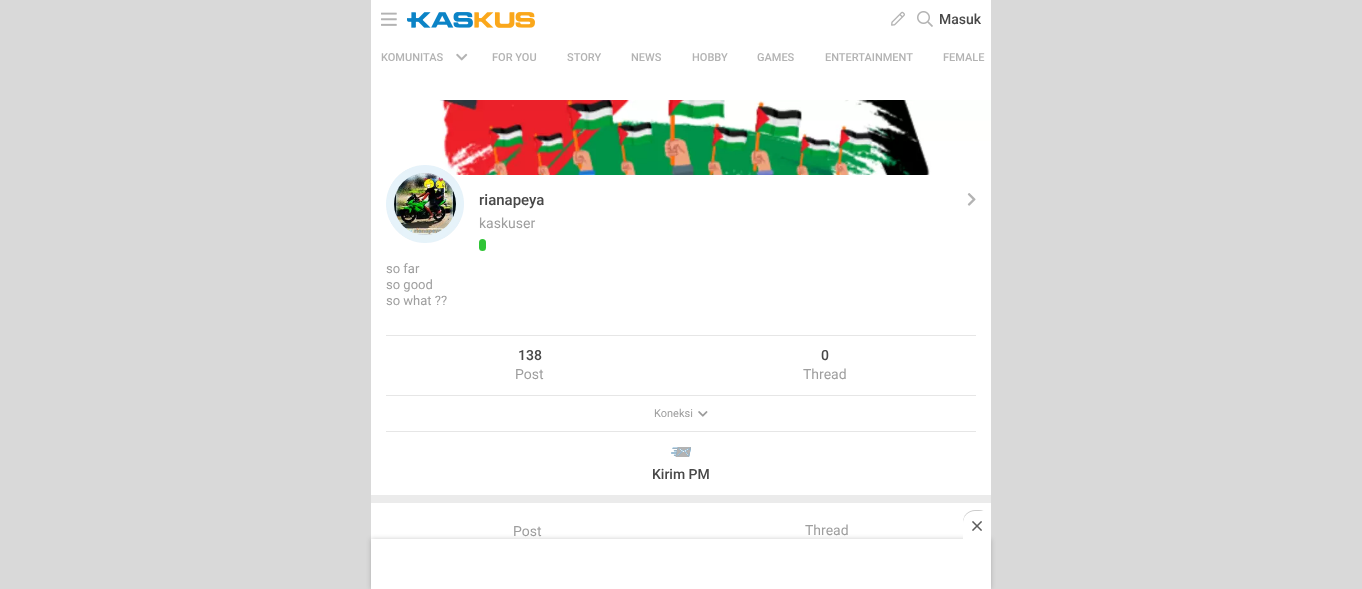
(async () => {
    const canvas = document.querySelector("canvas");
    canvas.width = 1362;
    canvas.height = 589;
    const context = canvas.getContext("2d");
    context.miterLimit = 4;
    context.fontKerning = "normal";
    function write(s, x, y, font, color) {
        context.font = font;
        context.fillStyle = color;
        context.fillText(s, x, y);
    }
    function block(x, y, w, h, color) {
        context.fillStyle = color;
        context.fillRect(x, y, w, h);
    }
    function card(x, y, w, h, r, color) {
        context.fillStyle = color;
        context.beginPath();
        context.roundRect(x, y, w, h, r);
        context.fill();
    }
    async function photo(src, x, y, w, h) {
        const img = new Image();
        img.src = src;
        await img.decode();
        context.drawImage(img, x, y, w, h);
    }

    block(0, 0, 1362, 589, "rgb(217, 217, 217)");
    block(371, 0, 620, 539, "rgb(255, 255, 255)");
    await photo("media/1.png", 381, 12, 16, 14);
    await photo("media/2.png", 407, 12, 128, 16);
    await photo("media/3.png", 891, 11, 14, 15);
    await photo("media/4.png", 917, 11, 16, 16);
    write("Masuk", 939, 24, "500 14px Roboto", "rgb(72, 72, 72)");
    write("KOMUNITAS", 381, 61, "500 11px Roboto", "rgb(179, 179, 179)");
    await photo("media/5.png", 456, 53, 12, 8);
    write("FOR YOU", 492, 61, "500 11px Roboto", "rgb(179, 179, 179)");
    write("STORY", 567, 61, "500 11px Roboto", "rgb(179, 179, 179)");
    write("NEWS", 631, 61, "500 11px Roboto", "rgb(179, 179, 179)");
    write("HOBBY", 692, 61, "500 11px Roboto", "rgb(179, 179, 179)");
    write("GAMES", 757, 61, "500 11px Roboto", "rgb(179, 179, 179)");
    write("ENTERTAINMENT", 825, 61, "500 11px Roboto", "rgb(179, 179, 179)");
    write("FEMALE", 943, 61, "500 11px Roboto", "rgb(179, 179, 179)");
    await photo("media/6.png", 371, 100, 620, 75);
    await photo("media/8.png", 394, 173, 62, 62);
    await photo("media/7.png", 386, 165, 78, 78);
    write("rianapeya", 479, 205, "500 15px Roboto", "rgb(72, 72, 72)");
    write("kaskuser", 479, 228, "14px Roboto", "rgb(158, 158, 158)");
    card(479, 239, 7, 12, 3.5, "rgb(48, 196, 54)");
    await photo("media/9.png", 967, 193, 9, 13);
    block(371, 495, 620, 8, "rgb(235, 235, 235)");
    write("so far", 386, 273, "13px Roboto", "rgb(158, 158, 158)");
    write("so good", 386, 289, "13px Roboto", "rgb(158, 158, 158)");
    write("so what ??", 386, 305, "13px Roboto", "rgb(158, 158, 158)");
    block(386, 335, 590, 1, "rgb(230, 230, 230)");
    write("138", 518, 360, "500 14px Roboto", "rgb(72, 72, 72)");
    write("Post", 515, 379, "14px Roboto", "rgb(158, 158, 158)");
    write("0", 821, 360, "500 14px Roboto", "rgb(72, 72, 72)");
    write("Thread", 803, 379, "14px Roboto", "rgb(158, 158, 158)");
    block(386, 395, 590, 1, "rgb(230, 230, 230)");
    write("Koneksi", 654, 417, "11px Roboto", "rgb(158, 158, 158)");
    await photo("media/10.png", 698, 411, 10, 6);
    block(386, 431, 590, 1, "rgb(230, 230, 230)");
    await photo("media/11.png", 671, 447, 20, 10);
    write("Kirim PM", 652, 479, "500 14px Roboto", "rgb(72, 72, 72)");
    write("Post", 513, 536, "14px Roboto", "rgb(158, 158, 158)");
    write("Thread", 805, 535, "14px Roboto", "rgb(158, 158, 158)");
    context.fillStyle = "rgba(0, 0, 0, 0.2)";
    context.filter = "blur(2.5px)";
    context.beginPath();
    context.rect(371, 539, 620, 50);
    context.fill();
    context.filter = "none";
    block(371, 539, 620, 50, "rgb(255, 255, 255)");
    context.fillStyle = "rgba(0, 0, 0, 0.2)";
    context.filter = "blur(0.5px)";
    context.beginPath();
    context.roundRect(963, 510, 28, 28, 12);
    context.fill();
    context.filter = "none";
    context.fillStyle = "rgb(255, 255, 255)";
    context.beginPath();
    context.roundRect(963, 511, 28, 28, [12, 0, 0, 0]);
    context.fill();
    await photo("media/12.png", 972, 521, 10, 10);
})();
